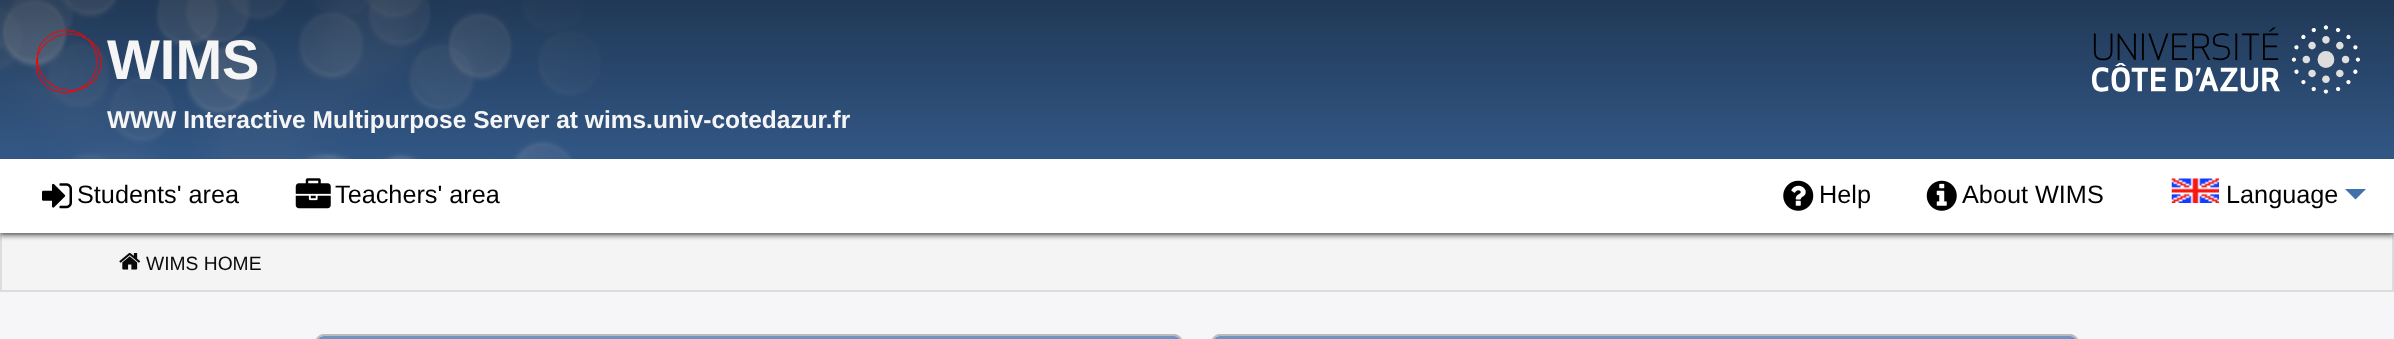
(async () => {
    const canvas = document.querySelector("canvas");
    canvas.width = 2394;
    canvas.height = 339;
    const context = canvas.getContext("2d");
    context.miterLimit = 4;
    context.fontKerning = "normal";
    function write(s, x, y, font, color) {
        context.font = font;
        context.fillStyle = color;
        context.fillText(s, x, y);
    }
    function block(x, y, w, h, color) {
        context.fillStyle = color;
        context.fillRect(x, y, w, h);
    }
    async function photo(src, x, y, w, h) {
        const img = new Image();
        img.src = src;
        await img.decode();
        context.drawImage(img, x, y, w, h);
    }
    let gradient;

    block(0, 0, 2394, 339, "rgb(65, 113, 173)");
    await photo("media/1.png", 0, 0, 601, 159);
    gradient = context.createLinearGradient(1197, 0, 1197, 292);
    gradient.addColorStop(0, "rgba(0, 0, 0, 0.5)");
    gradient.addColorStop(1, "rgba(0, 0, 0, 0)");
    context.fillStyle = gradient;
    context.fillRect(0, 0, 2394, 159);
    await photo("media/2.png", 36, 29, 66, 64);
    write("WIMS", 107, 79, "bold 56px Liberation Sans", "rgb(245, 245, 245)");
    write("WWW Interactive Multipurpose Server at wims.univ-cotedazur.fr", 107, 128, "bold 24.5px Liberation Sans", "rgb(245, 245, 245)");
    await photo("media/3.png", 2091, 25, 269, 69);
    context.fillStyle = "rgb(244, 244, 244)";
    context.beginPath();
    context.rect(1, 234, 2392, 57);
    context.fill();
    context.strokeStyle = "rgb(220, 220, 220)";
    context.lineWidth = 2;
    context.stroke();
    context.fillStyle = "rgba(0, 0, 0, 0.5)";
    context.filter = "blur(2.5px)";
    context.beginPath();
    context.rect(0, 163, 2394, 73);
    context.fill();
    context.filter = "none";
    block(0, 159, 2394, 74, "rgb(255, 255, 255)");
    await photo("media/4.png", 42, 183, 30, 26);
    write("Students' area", 77, 203, "25.25px Liberation Sans", "rgb(0, 0, 0)");
    await photo("media/5.png", 295, 178, 36, 31);
    write("Teachers' area", 335, 203, "25.25px Liberation Sans", "rgb(0, 0, 0)");
    await photo("media/6.png", 1783, 180, 31, 31);
    write("Help", 1819, 203, "25.25px Liberation Sans", "rgb(0, 0, 0)");
    await photo("media/7.png", 1926, 180, 31, 31);
    write("About WIMS", 1962, 203, "25.25px Liberation Sans", "rgb(0, 0, 0)");
    await photo("media/8.png", 2171, 178, 48, 25);
    write("Language", 2226, 203, "25.25px Liberation Sans", "rgb(0, 0, 0)");
    context.fillStyle = "rgb(65, 113, 173)";
    context.beginPath();
    context.moveTo(2345, 189);
    context.lineTo(2366, 189);
    context.lineTo(2355.5, 199.5);
    context.closePath();
    context.fill();
    await photo("media/9.png", 119, 253, 22, 17);
    write("WIMS HOME", 146, 270, "19.25px Liberation Sans", "rgb(10, 10, 10)");
    block(0, 292, 2394, 47, "rgb(246, 246, 249)");
    context.fillStyle = "rgb(65, 113, 173)";
    context.beginPath();
    context.moveTo(324, 336);
    context.lineTo(1174, 336);
    context.bezierCurveTo(1178, 336, 1181, 339, 1181, 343);
    context.lineTo(1181, 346);
    context.lineTo(317, 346);
    context.lineTo(317, 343);
    context.bezierCurveTo(317, 339, 320, 336, 324, 336);
    context.closePath();
    context.fill();
    gradient = context.createLinearGradient(749, 336, 749, 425);
    gradient.addColorStop(0, "rgba(255, 255, 255, 0.25)");
    gradient.addColorStop(0.49, "rgba(255, 255, 255, 0.1)");
    gradient.addColorStop(0.5, "rgba(0, 0, 0, 0.1)");
    gradient.addColorStop(1, "rgba(0, 0, 0, 0.25)");
    context.fillStyle = gradient;
    context.beginPath();
    context.moveTo(324, 336);
    context.lineTo(1174, 336);
    context.bezierCurveTo(1178, 336, 1181, 339, 1181, 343);
    context.lineTo(1181, 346);
    context.lineTo(317, 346);
    context.lineTo(317, 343);
    context.bezierCurveTo(317, 339, 320, 336, 324, 336);
    context.closePath();
    context.fill();
    context.fillStyle = "rgb(187, 187, 187)";
    context.beginPath();
    context.moveTo(324, 334);
    context.lineTo(1174, 334);
    context.bezierCurveTo(1179, 334, 1183, 338, 1183, 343);
    context.lineTo(1183, 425);
    context.lineTo(315, 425);
    context.lineTo(315, 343);
    context.bezierCurveTo(315, 338, 319, 334, 324, 334);
    context.closePath();
    context.moveTo(324, 336);
    context.lineTo(1174, 336);
    context.bezierCurveTo(1178, 336, 1181, 339, 1181, 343);
    context.lineTo(1181, 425);
    context.lineTo(317, 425);
    context.lineTo(317, 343);
    context.bezierCurveTo(317, 339, 320, 336, 324, 336);
    context.closePath();
    context.fill("evenodd");
    context.fillStyle = "rgb(65, 113, 173)";
    context.beginPath();
    context.moveTo(1220, 336);
    context.lineTo(2070, 336);
    context.bezierCurveTo(2074, 336, 2077, 339, 2077, 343);
    context.lineTo(2077, 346);
    context.lineTo(1213, 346);
    context.lineTo(1213, 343);
    context.bezierCurveTo(1213, 339, 1216, 336, 1220, 336);
    context.closePath();
    context.fill();
    gradient = context.createLinearGradient(1645, 336, 1645, 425);
    gradient.addColorStop(0, "rgba(255, 255, 255, 0.25)");
    gradient.addColorStop(0.49, "rgba(255, 255, 255, 0.1)");
    gradient.addColorStop(0.5, "rgba(0, 0, 0, 0.1)");
    gradient.addColorStop(1, "rgba(0, 0, 0, 0.25)");
    context.fillStyle = gradient;
    context.beginPath();
    context.moveTo(1220, 336);
    context.lineTo(2070, 336);
    context.bezierCurveTo(2074, 336, 2077, 339, 2077, 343);
    context.lineTo(2077, 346);
    context.lineTo(1213, 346);
    context.lineTo(1213, 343);
    context.bezierCurveTo(1213, 339, 1216, 336, 1220, 336);
    context.closePath();
    context.fill();
    context.fillStyle = "rgb(187, 187, 187)";
    context.beginPath();
    context.moveTo(1220, 334);
    context.lineTo(2070, 334);
    context.bezierCurveTo(2075, 334, 2079, 338, 2079, 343);
    context.lineTo(2079, 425);
    context.lineTo(1211, 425);
    context.lineTo(1211, 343);
    context.bezierCurveTo(1211, 338, 1215, 334, 1220, 334);
    context.closePath();
    context.moveTo(1220, 336);
    context.lineTo(2070, 336);
    context.bezierCurveTo(2074, 336, 2077, 339, 2077, 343);
    context.lineTo(2077, 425);
    context.lineTo(1213, 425);
    context.lineTo(1213, 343);
    context.bezierCurveTo(1213, 339, 1216, 336, 1220, 336);
    context.closePath();
    context.fill("evenodd");
})();
